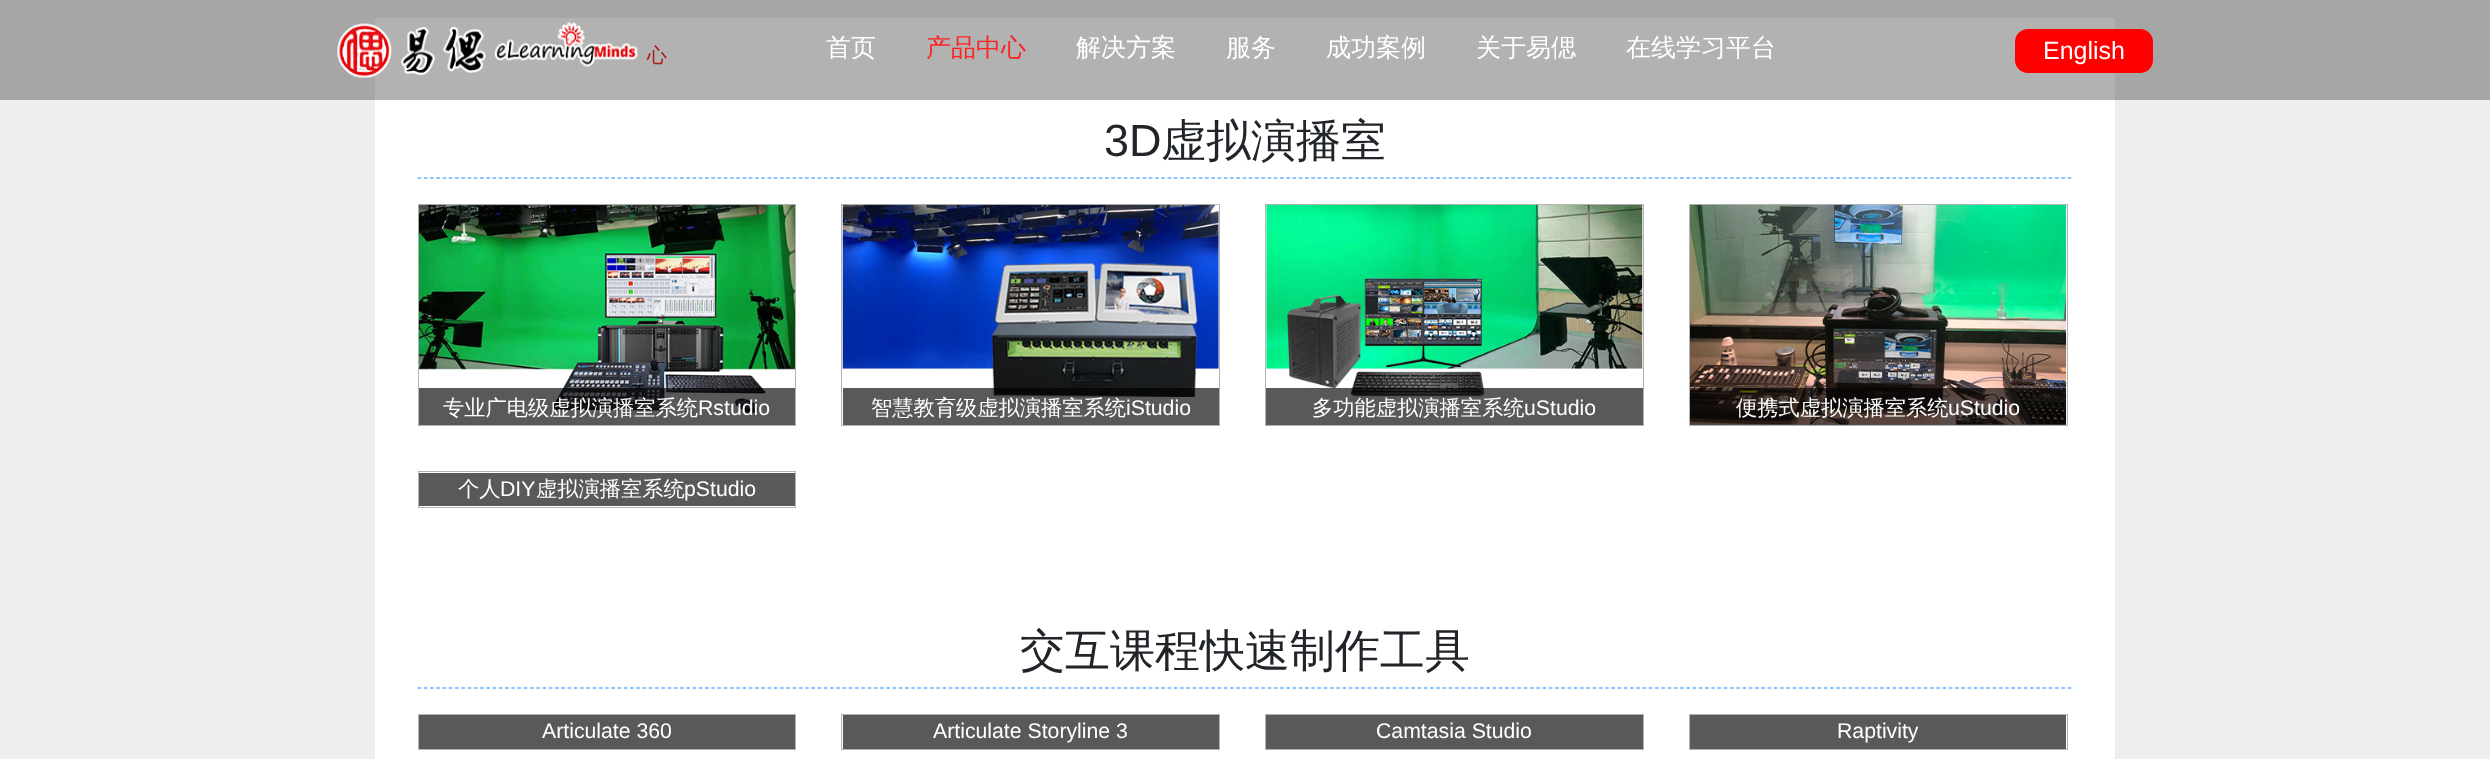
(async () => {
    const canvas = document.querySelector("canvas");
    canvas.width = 2490;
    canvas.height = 759;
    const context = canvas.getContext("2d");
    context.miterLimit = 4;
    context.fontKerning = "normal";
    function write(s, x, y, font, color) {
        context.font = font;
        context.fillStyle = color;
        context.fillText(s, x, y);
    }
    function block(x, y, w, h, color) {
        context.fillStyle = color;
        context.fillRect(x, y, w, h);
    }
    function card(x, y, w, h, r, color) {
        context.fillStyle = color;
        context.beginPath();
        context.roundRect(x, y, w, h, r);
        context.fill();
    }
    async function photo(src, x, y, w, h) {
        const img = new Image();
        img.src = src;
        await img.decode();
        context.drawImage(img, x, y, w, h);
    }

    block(0, 0, 2490, 759, "rgb(238, 238, 238)");
    card(375, 18, 1740, 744, 2.5, "rgb(255, 255, 255)");
    write("心", 647, 62, "500 20px WenQuanYi Zen Hei", "rgb(255, 33, 33)");
    block(0, 0, 2490, 100, "rgba(0, 0, 0, 0.3)");
    await photo("media/1.png", 337, 22, 301, 56);
    write("首页", 826, 56, "500 25px WenQuanYi Zen Hei", "rgb(255, 255, 255)");
    write("产品中心", 926, 56, "500 25px WenQuanYi Zen Hei", "rgb(255, 33, 33)");
    write("解决方案", 1076, 56, "500 25px WenQuanYi Zen Hei", "rgb(255, 255, 255)");
    write("服务", 1226, 56, "500 25px WenQuanYi Zen Hei", "rgb(255, 255, 255)");
    write("成功案例", 1326, 56, "500 25px WenQuanYi Zen Hei", "rgb(255, 255, 255)");
    write("关于易偲", 1476, 56, "500 25px WenQuanYi Zen Hei", "rgb(255, 255, 255)");
    write("在线学习平台", 1626, 56, "500 25px WenQuanYi Zen Hei", "rgb(255, 255, 255)");
    context.fillStyle = "rgb(255, 0, 0)";
    context.beginPath();
    context.roundRect(2016.5, 30.5, 135, 41, 11.5);
    context.fill();
    context.strokeStyle = "rgb(255, 0, 0)";
    context.lineWidth = 3;
    context.stroke();
    write("English", 2043, 59, "25px Liberation Sans", "rgb(255, 255, 255)");
    context.beginPath();
    context.moveTo(417.5, 178);
    context.lineTo(2072.5, 178);
    context.strokeStyle = "rgb(30, 144, 255)";
    context.lineWidth = 1.2;
    context.setLineDash([3.75, 2.5]);
    context.stroke();
    write("3D", 1104, 156, "45px Liberation Sans", "rgb(33, 37, 41)");
    write("虚拟演播室", 1161, 156, "500 45px WenQuanYi Zen Hei", "rgb(33, 37, 41)");
    context.strokeStyle = "rgb(179, 179, 179)";
    context.lineWidth = 1;
    context.setLineDash([]);
    context.strokeRect(418.5, 204.5, 377, 221);
    await photo("media/2.png", 418, 204, 377, 220);
    block(419, 388, 376, 37, "rgba(0, 0, 0, 0.65)");
    write("专业广电级虚拟演播室系统", 443, 415, "500 21.25px WenQuanYi Zen Hei", "rgb(255, 255, 255)");
    write("Rstudio", 698, 415, "21.25px Liberation Sans", "rgb(255, 255, 255)");
    context.strokeRect(841.5, 204.5, 378, 221);
    await photo("media/3.png", 842, 204, 377, 193);
    block(843, 388, 376, 37, "rgba(0, 0, 0, 0.65)");
    write("智慧教育级虚拟演播室系统", 871, 415, "500 21.25px WenQuanYi Zen Hei", "rgb(255, 255, 255)");
    write("iStudio", 1126, 415, "21.25px Liberation Sans", "rgb(255, 255, 255)");
    context.strokeRect(1265.5, 204.5, 378, 221);
    await photo("media/4.png", 1266, 204, 377, 193);
    block(1266, 388, 377, 37, "rgba(0, 0, 0, 0.65)");
    write("多功能虚拟演播室系统", 1312, 415, "500 21.25px WenQuanYi Zen Hei", "rgb(255, 255, 255)");
    write("uStudio", 1524, 415, "21.25px Liberation Sans", "rgb(255, 255, 255)");
    context.strokeRect(1689.5, 204.5, 378, 221);
    await photo("media/5.png", 1690, 204, 377, 221);
    block(1690, 388, 376, 37, "rgba(0, 0, 0, 0.65)");
    write("便携式虚拟演播室系统", 1736, 415, "500 21.25px WenQuanYi Zen Hei", "rgb(255, 255, 255)");
    write("uStudio", 1948, 415, "21.25px Liberation Sans", "rgb(255, 255, 255)");
    context.strokeRect(418.5, 471.5, 377, 36);
    block(419, 473, 376, 33, "rgb(89, 89, 89)");
    write("个人", 458, 496, "500 21.25px WenQuanYi Zen Hei", "rgb(255, 255, 255)");
    write("DIY", 500, 496, "21.25px Liberation Sans", "rgb(255, 255, 255)");
    write("虚拟演播室系统", 536, 496, "500 21.25px WenQuanYi Zen Hei", "rgb(255, 255, 255)");
    write("pStudio", 684, 496, "21.25px Liberation Sans", "rgb(255, 255, 255)");
    context.beginPath();
    context.moveTo(417.5, 688);
    context.lineTo(2072.5, 688);
    context.strokeStyle = "rgb(30, 144, 255)";
    context.lineWidth = 1.2;
    context.setLineDash([3.75, 2.5]);
    context.stroke();
    write("交互课程快速制作工具", 1020, 666, "500 45px WenQuanYi Zen Hei", "rgb(33, 37, 41)");
    context.strokeStyle = "rgb(179, 179, 179)";
    context.lineWidth = 1;
    context.setLineDash([]);
    context.strokeRect(418.5, 714.5, 377, 35);
    block(419, 715, 376, 34, "rgb(89, 89, 89)");
    write("Articulate 360", 542, 738, "21.25px Liberation Sans", "rgb(255, 255, 255)");
    context.strokeRect(841.5, 714.5, 378, 35);
    block(843, 715, 376, 34, "rgb(89, 89, 89)");
    write("Articulate Storyline 3", 933, 738, "21.25px Liberation Sans", "rgb(255, 255, 255)");
    context.strokeRect(1265.5, 714.5, 378, 35);
    block(1266, 715, 377, 34, "rgb(89, 89, 89)");
    write("Camtasia Studio", 1376, 738, "21.25px Liberation Sans", "rgb(255, 255, 255)");
    context.strokeRect(1689.5, 714.5, 378, 35);
    block(1690, 715, 376, 34, "rgb(89, 89, 89)");
    write("Raptivity", 1837, 738, "21.25px Liberation Sans", "rgb(255, 255, 255)");
})();
